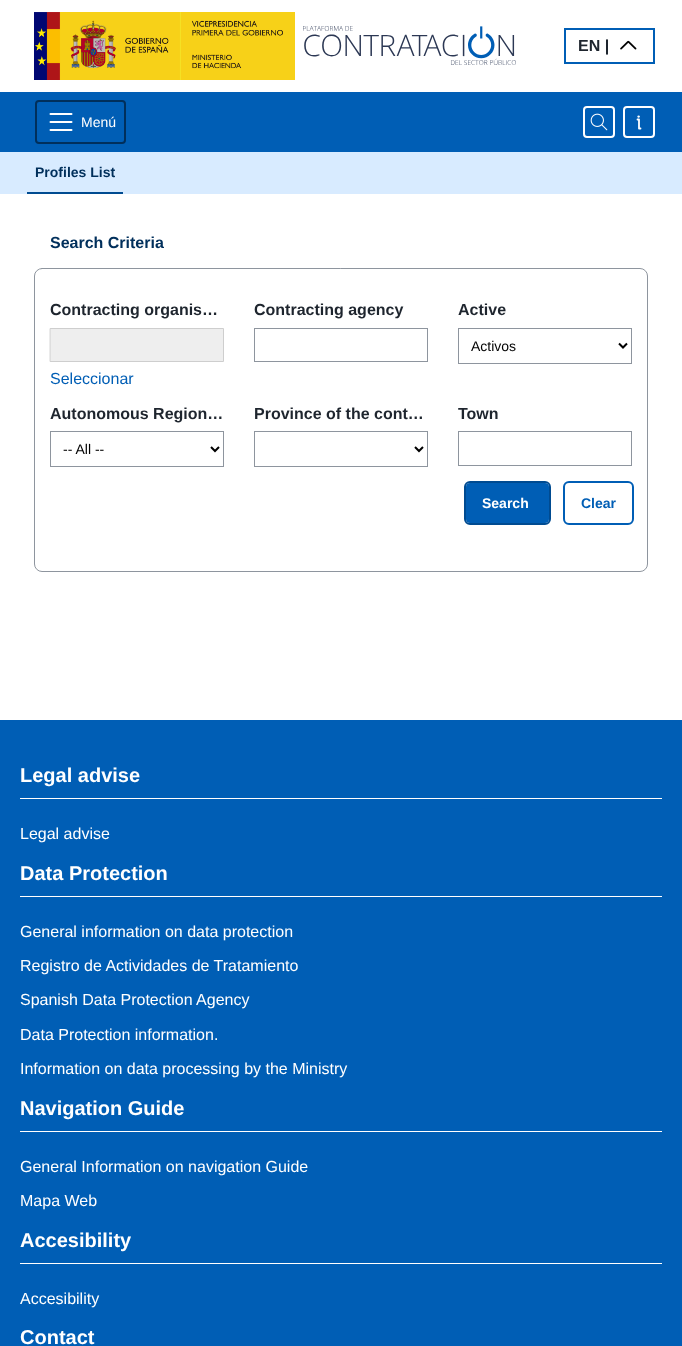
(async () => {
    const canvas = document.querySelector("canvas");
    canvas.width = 682;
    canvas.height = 1346;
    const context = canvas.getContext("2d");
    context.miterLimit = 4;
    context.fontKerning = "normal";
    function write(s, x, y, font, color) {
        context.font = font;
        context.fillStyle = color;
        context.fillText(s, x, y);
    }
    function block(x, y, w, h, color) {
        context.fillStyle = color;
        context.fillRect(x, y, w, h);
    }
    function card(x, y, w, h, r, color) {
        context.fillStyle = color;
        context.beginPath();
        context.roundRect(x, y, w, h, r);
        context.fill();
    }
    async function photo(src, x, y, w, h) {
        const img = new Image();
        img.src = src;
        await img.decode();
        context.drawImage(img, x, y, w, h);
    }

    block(0, 0, 682, 1346, "rgb(255, 255, 255)");
    await photo("media/1.png", 34, 12, 261, 68);
    await photo("media/2.png", 303, 26, 213, 39);
    context.strokeStyle = "rgb(0, 94, 181)";
    context.lineWidth = 2;
    context.strokeRect(565, 29, 89, 34);
    write("EN |", 578, 51, "bold 16px Liberation Sans", "rgb(30, 37, 46)");
    await photo("media/3.png", 620, 40, 17, 10);
    block(0, 92, 682, 60, "rgb(0, 94, 181)");
    context.beginPath();
    context.roundRect(36, 101, 89, 42, 3);
    context.strokeStyle = "rgb(0, 47, 91)";
    context.stroke();
    context.beginPath();
    context.moveTo(50.5, 114);
    context.lineTo(71.5, 114);
    context.moveTo(50.5, 122);
    context.lineTo(71.5, 122);
    context.moveTo(50.5, 130);
    context.lineTo(71.5, 130);
    context.strokeStyle = "rgb(255, 255, 255)";
    context.lineCap = "round";
    context.lineJoin = "round";
    context.stroke();
    write("Menú", 81, 127, "14px Liberation Sans", "rgb(255, 255, 255)");
    context.beginPath();
    context.roundRect(584, 107, 30, 30, 3);
    context.lineJoin = "miter";
    context.stroke();
    await photo("media/4.png", 590, 113, 18, 18);
    context.beginPath();
    context.roundRect(624, 107, 30, 30, 3);
    context.stroke();
    context.beginPath();
    context.moveTo(637.5, 119.5);
    context.lineTo(639, 119.5);
    context.lineTo(639, 128.5);
    context.lineTo(640.5, 128.5);
    context.lineWidth = 1.8;
    context.lineJoin = "round";
    context.stroke();
    context.beginPath();
    context.arc(638.6, 116.6, 1.2, 0, Math.PI * 2);
    context.fill();
    block(0, 152, 682, 42, "rgb(216, 235, 255)");
    block(27, 192, 96, 2, "rgb(0, 75, 145)");
    write("Profiles List", 35, 177, "bold 14px Liberation Sans", "rgb(0, 47, 91)");
    write("Search Criteria", 50, 248, "bold 16px Liberation Sans", "rgb(0, 47, 91)");
    context.beginPath();
    context.roundRect(34.5, 268.5, 613, 303, 7.5);
    context.strokeStyle = "rgb(142, 149, 158)";
    context.lineWidth = 1;
    context.lineJoin = "miter";
    context.stroke();
    write("Contracting organis…", 50, 315, "bold 16px Liberation Sans", "rgb(30, 37, 46)");
    context.fillStyle = "rgb(238, 238, 238)";
    context.beginPath();
    context.rect(50.5, 328.5, 173, 33);
    context.fill();
    context.strokeStyle = "rgb(206, 206, 206)";
    context.stroke();
    write("Seleccionar", 50, 384, "16px Liberation Sans", "rgb(0, 94, 181)");
    write("Contracting agency", 254, 315, "bold 16px Liberation Sans", "rgb(30, 37, 46)");
    context.strokeStyle = "rgb(142, 149, 158)";
    context.strokeRect(254.5, 328.5, 173, 33);
    write("Active", 458, 315, "bold 16px Liberation Sans", "rgb(30, 37, 46)");
    context.strokeRect(458.5, 328.5, 173, 35);
    context.beginPath();
    context.moveTo(619, 343.5);
    context.lineTo(623, 347.5);
    context.lineTo(627, 343.5);
    context.strokeStyle = "rgb(0, 0, 0)";
    context.lineWidth = 2;
    context.lineCap = "butt";
    context.stroke();
    write("Activos", 471, 351, "14px Liberation Sans", "rgb(0, 0, 0)");
    write("Autonomous Region…", 50, 419, "bold 16px Liberation Sans", "rgb(30, 37, 46)");
    context.strokeStyle = "rgb(142, 149, 158)";
    context.lineWidth = 1;
    context.strokeRect(50.5, 431.5, 173, 35);
    context.beginPath();
    context.moveTo(211, 447);
    context.lineTo(215, 451);
    context.lineTo(219, 447);
    context.strokeStyle = "rgb(0, 0, 0)";
    context.lineWidth = 2;
    context.stroke();
    write("-- All --", 63, 454, "14px Liberation Sans", "rgb(0, 0, 0)");
    write("Province of the cont…", 254, 419, "bold 16px Liberation Sans", "rgb(30, 37, 46)");
    context.strokeStyle = "rgb(142, 149, 158)";
    context.lineWidth = 1;
    context.strokeRect(254.5, 431.5, 173, 35);
    context.beginPath();
    context.moveTo(415, 447);
    context.lineTo(419, 451);
    context.lineTo(423, 447);
    context.strokeStyle = "rgb(0, 0, 0)";
    context.lineWidth = 2;
    context.stroke();
    write("Town", 458, 419, "bold 16px Liberation Sans", "rgb(30, 37, 46)");
    context.strokeStyle = "rgb(142, 149, 158)";
    context.lineWidth = 1;
    context.strokeRect(458.5, 431.5, 173, 34);
    card(466, 483, 83, 40, 4, "rgb(0, 94, 181)");
    context.beginPath();
    context.roundRect(465, 482, 85, 42, 5);
    context.strokeStyle = "rgb(0, 75, 145)";
    context.lineWidth = 2;
    context.stroke();
    write("Search", 482, 508, "bold 14px Liberation Sans", "rgb(255, 255, 255)");
    context.beginPath();
    context.roundRect(564, 482, 69, 42, 5);
    context.strokeStyle = "rgb(0, 94, 181)";
    context.stroke();
    write("Clear", 581, 508, "bold 14px Liberation Sans", "rgb(0, 94, 181)");
    block(0, 720, 682, 626, "rgb(0, 94, 181)");
    block(20, 798, 642, 1, "rgb(255, 255, 255)");
    write("Legal advise", 20, 782, "bold 20px Liberation Sans", "rgb(255, 255, 255)");
    write("Legal advise", 20, 839, "16px Liberation Sans", "rgb(255, 255, 255)");
    block(20, 896, 642, 1, "rgb(255, 255, 255)");
    write("Data Protection", 20, 880, "bold 20px Liberation Sans", "rgb(255, 255, 255)");
    write("General information on data protection", 20, 937, "16px Liberation Sans", "rgb(255, 255, 255)");
    write("Registro de Actividades de Tratamiento", 20, 971, "16px Liberation Sans", "rgb(255, 255, 255)");
    write("Spanish Data Protection Agency", 20, 1005, "16px Liberation Sans", "rgb(255, 255, 255)");
    write("Data Protection information.", 20, 1040, "16px Liberation Sans", "rgb(255, 255, 255)");
    write("Information on data processing by the Ministry", 20, 1074, "16px Liberation Sans", "rgb(255, 255, 255)");
    block(20, 1131, 642, 1, "rgb(255, 255, 255)");
    write("Navigation Guide", 20, 1115, "bold 20px Liberation Sans", "rgb(255, 255, 255)");
    write("General Information on navigation Guide", 20, 1172, "16px Liberation Sans", "rgb(255, 255, 255)");
    write("Mapa Web", 20, 1206, "16px Liberation Sans", "rgb(255, 255, 255)");
    block(20, 1263, 642, 1, "rgb(255, 255, 255)");
    write("Accesibility", 20, 1247, "bold 20px Liberation Sans", "rgb(255, 255, 255)");
    write("Accesibility", 20, 1304, "16px Liberation Sans", "rgb(255, 255, 255)");
    write("Contact", 20, 1344, "bold 20px Liberation Sans", "rgb(255, 255, 255)");
})();
